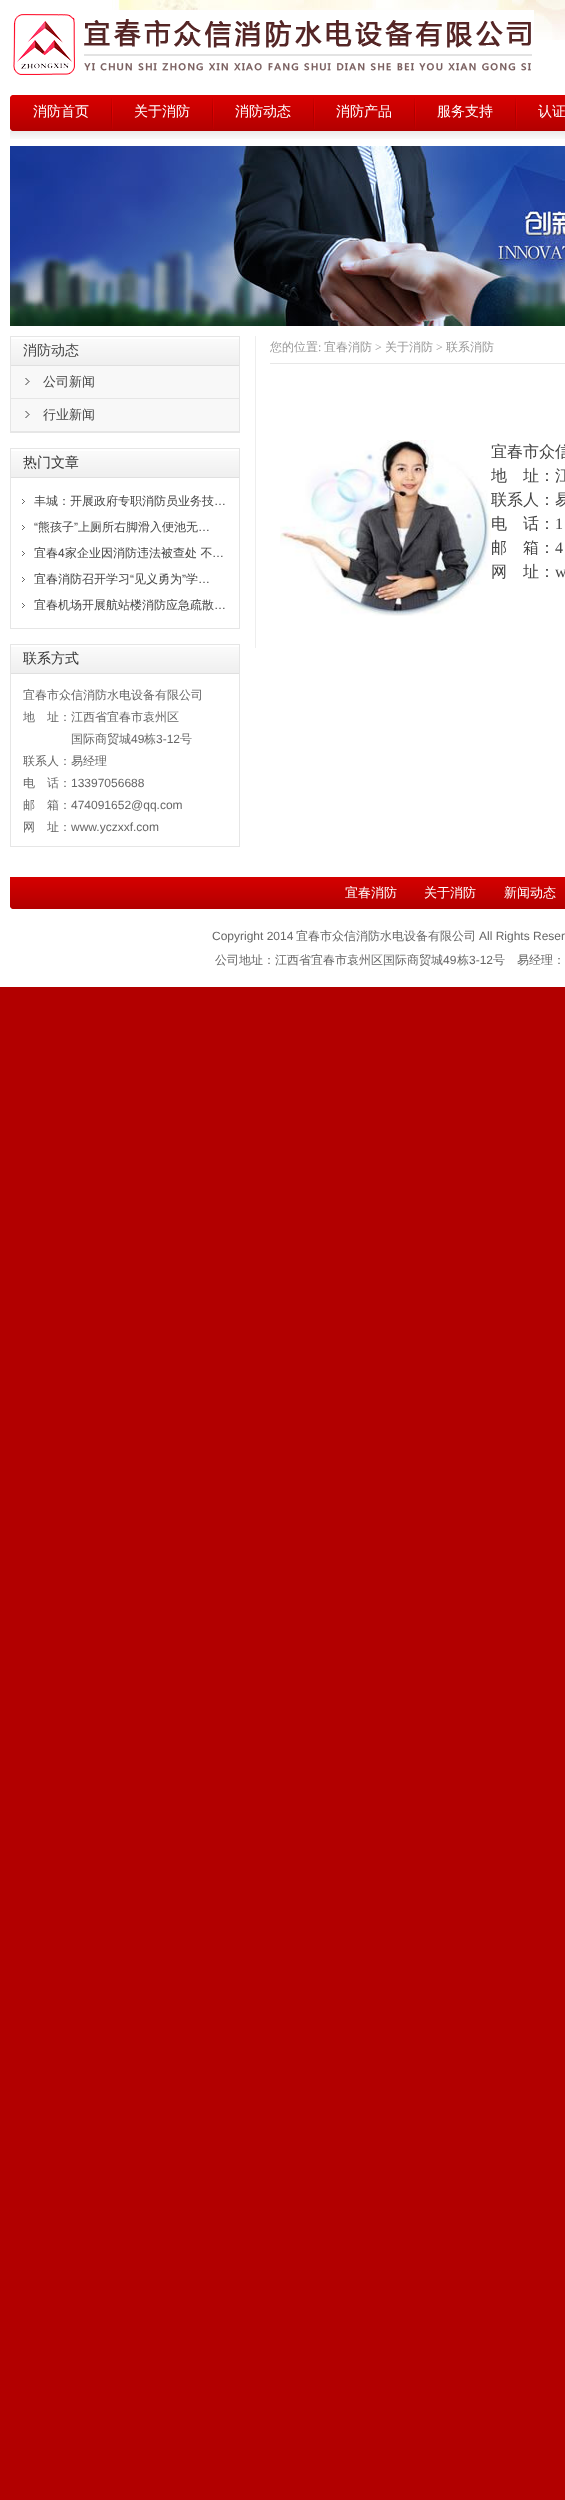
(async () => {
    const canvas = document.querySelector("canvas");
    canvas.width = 565;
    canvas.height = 2500;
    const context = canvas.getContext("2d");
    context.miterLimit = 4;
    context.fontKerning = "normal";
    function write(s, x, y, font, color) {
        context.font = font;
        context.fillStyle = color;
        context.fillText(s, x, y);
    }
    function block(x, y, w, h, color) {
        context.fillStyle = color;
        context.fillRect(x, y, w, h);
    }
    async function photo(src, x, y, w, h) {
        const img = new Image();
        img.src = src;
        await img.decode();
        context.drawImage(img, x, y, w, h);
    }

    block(0, 0, 565, 2500, "rgb(178, 0, 0)");
    block(0, 0, 565, 987, "rgb(255, 255, 255)");
    await photo("media/1.png", 112, 0, 453, 40);
    await photo("media/2.png", 10, 131, 555, 8);
    await photo("media/3.png", 13, 10, 521, 65);
    await photo("media/4.png", 10, 95, 555, 36);
    write("消防首页", 33, 116, "500 14px WenQuanYi Zen Hei", "rgb(255, 255, 255)");
    await photo("media/5.png", 111, 98, 2, 31);
    write("关于消防", 134, 116, "500 14px WenQuanYi Zen Hei", "rgb(255, 255, 255)");
    await photo("media/5.png", 212, 98, 2, 31);
    write("消防动态", 235, 116, "500 14px WenQuanYi Zen Hei", "rgb(255, 255, 255)");
    await photo("media/5.png", 313, 98, 2, 31);
    write("消防产品", 336, 116, "500 14px WenQuanYi Zen Hei", "rgb(255, 255, 255)");
    await photo("media/5.png", 414, 98, 2, 31);
    write("服务支持", 437, 116, "500 14px WenQuanYi Zen Hei", "rgb(255, 255, 255)");
    await photo("media/5.png", 515, 98, 2, 31);
    write("认证", 538, 116, "500 14px WenQuanYi Zen Hei", "rgb(255, 255, 255)");
    await photo("media/6.png", 10, 146, 555, 180);
    context.strokeStyle = "rgb(230, 230, 230)";
    context.strokeRect(10.5, 336.5, 229, 96);
    await photo("media/7.png", 11, 339, 228, 27);
    write("消防动态", 23, 355, "500 14px WenQuanYi Zen Hei", "rgb(68, 68, 68)");
    block(11, 366, 228, 32, "rgb(248, 248, 248)");
    await photo("media/8.png", 25, 378, 5, 7);
    block(11, 398, 228, 1, "rgb(230, 230, 230)");
    write("公司新闻", 43, 386, "500 13px WenQuanYi Zen Hei", "rgb(68, 68, 68)");
    block(11, 399, 228, 32, "rgb(248, 248, 248)");
    await photo("media/8.png", 25, 411, 5, 7);
    block(11, 431, 228, 1, "rgb(230, 230, 230)");
    write("行业新闻", 43, 419, "500 13px WenQuanYi Zen Hei", "rgb(68, 68, 68)");
    context.strokeRect(10.5, 448.5, 229, 180);
    await photo("media/7.png", 11, 451, 228, 27);
    write("热门文章", 23, 467, "500 14px WenQuanYi Zen Hei", "rgb(51, 51, 51)");
    await photo("media/9.png", 22, 499, 3, 5);
    write("丰城：开展政府专职消防员业务技", 34, 505, "500 12px WenQuanYi Zen Hei", "rgb(68, 68, 68)");
    write("…", 214, 505, "12px Liberation Sans", "rgb(68, 68, 68)");
    await photo("media/9.png", 22, 525, 3, 5);
    write("“", 34, 531, "12px Liberation Sans", "rgb(68, 68, 68)");
    write("熊孩子", 38, 531, "500 12px WenQuanYi Zen Hei", "rgb(68, 68, 68)");
    write("”", 74, 531, "12px Liberation Sans", "rgb(68, 68, 68)");
    write("上厕所右脚滑入便池无", 78, 531, "500 12px WenQuanYi Zen Hei", "rgb(68, 68, 68)");
    write("…", 198, 531, "12px Liberation Sans", "rgb(68, 68, 68)");
    await photo("media/9.png", 22, 551, 3, 5);
    write("宜春", 34, 557, "500 12px WenQuanYi Zen Hei", "rgb(68, 68, 68)");
    write("4", 58, 557, "12px Liberation Sans", "rgb(68, 68, 68)");
    write("家企业因消防违法被查处 不", 65, 557, "500 12px WenQuanYi Zen Hei", "rgb(68, 68, 68)");
    write("…", 212, 557, "12px Liberation Sans", "rgb(68, 68, 68)");
    await photo("media/9.png", 22, 577, 3, 5);
    write("宜春消防召开学习", 34, 583, "500 12px WenQuanYi Zen Hei", "rgb(68, 68, 68)");
    write("“", 130, 583, "12px Liberation Sans", "rgb(68, 68, 68)");
    write("见义勇为", 134, 583, "500 12px WenQuanYi Zen Hei", "rgb(68, 68, 68)");
    write("”", 182, 583, "12px Liberation Sans", "rgb(68, 68, 68)");
    write("学", 186, 583, "500 12px WenQuanYi Zen Hei", "rgb(68, 68, 68)");
    write("…", 198, 583, "12px Liberation Sans", "rgb(68, 68, 68)");
    await photo("media/9.png", 22, 603, 3, 5);
    write("宜春机场开展航站楼消防应急疏散", 34, 609, "500 12px WenQuanYi Zen Hei", "rgb(68, 68, 68)");
    write("…", 214, 609, "12px Liberation Sans", "rgb(68, 68, 68)");
    context.strokeRect(10.5, 644.5, 229, 202);
    await photo("media/7.png", 11, 647, 228, 27);
    write("联系方式", 23, 663, "500 14px WenQuanYi Zen Hei", "rgb(51, 51, 51)");
    write("宜春市众信消防水电设备有限公司", 23, 699, "500 12px WenQuanYi Zen Hei", "rgb(102, 102, 102)");
    write("地　址：江西省宜春市袁州区", 23, 721, "500 12px WenQuanYi Zen Hei", "rgb(102, 102, 102)");
    write("国际商贸城", 71, 743, "500 12px WenQuanYi Zen Hei", "rgb(102, 102, 102)");
    write("49", 131, 743, "12px Liberation Sans", "rgb(102, 102, 102)");
    write("栋", 144, 743, "500 12px WenQuanYi Zen Hei", "rgb(102, 102, 102)");
    write("3-12", 156, 743, "12px Liberation Sans", "rgb(102, 102, 102)");
    write("号", 180, 743, "500 12px WenQuanYi Zen Hei", "rgb(102, 102, 102)");
    write("联系人：易经理", 23, 765, "500 12px WenQuanYi Zen Hei", "rgb(102, 102, 102)");
    write("电　话：", 23, 787, "500 12px WenQuanYi Zen Hei", "rgb(102, 102, 102)");
    write("13397056688", 71, 787, "12px Liberation Sans", "rgb(102, 102, 102)");
    write("邮　箱：", 23, 809, "500 12px WenQuanYi Zen Hei", "rgb(102, 102, 102)");
    write("474091652@qq.com", 71, 809, "12px Liberation Sans", "rgb(102, 102, 102)");
    write("网　址：", 23, 831, "500 12px WenQuanYi Zen Hei", "rgb(102, 102, 102)");
    write("www.yczxxf.com", 71, 831, "12px Liberation Sans", "rgb(102, 102, 102)");
    block(255, 336, 1, 312, "rgb(238, 238, 238)");
    block(270, 363, 295, 1, "rgb(231, 231, 231)");
    write("您的位置", 270, 351, "500 12px WenQuanYi Zen Hei", "rgb(153, 153, 153)");
    write(":", 318, 351, "12px Liberation Serif", "rgb(153, 153, 153)");
    write("宜春消防", 324, 351, "500 12px WenQuanYi Zen Hei", "rgb(153, 153, 153)");
    write(">", 375, 351, "12px Liberation Serif", "rgb(153, 153, 153)");
    write("关于消防", 385, 351, "500 12px WenQuanYi Zen Hei", "rgb(153, 153, 153)");
    write(">", 436, 351, "12px Liberation Serif", "rgb(153, 153, 153)");
    write("联系消防", 446, 351, "500 12px WenQuanYi Zen Hei", "rgb(153, 153, 153)");
    await photo("media/10.png", 280, 440, 211, 176);
    write("宜春市众信", 491, 457, "500 16px WenQuanYi Zen Hei", "rgb(68, 68, 68)");
    write("地　址：江", 491, 481, "500 16px WenQuanYi Zen Hei", "rgb(68, 68, 68)");
    write("联系人：易", 491, 505, "500 16px WenQuanYi Zen Hei", "rgb(68, 68, 68)");
    write("电　话：", 491, 529, "500 16px WenQuanYi Zen Hei", "rgb(68, 68, 68)");
    write("1", 555, 529, "16px Liberation Serif", "rgb(68, 68, 68)");
    write("邮　箱：", 491, 553, "500 16px WenQuanYi Zen Hei", "rgb(68, 68, 68)");
    write("4", 555, 553, "16px Liberation Serif", "rgb(68, 68, 68)");
    write("网　址：", 491, 577, "500 16px WenQuanYi Zen Hei", "rgb(68, 68, 68)");
    write("w", 555, 577, "16px Liberation Serif", "rgb(68, 68, 68)");
    await photo("media/11.png", 10, 877, 555, 32);
    write("宜春消防", 345, 897, "500 13px WenQuanYi Zen Hei", "rgb(255, 255, 255)");
    write("关于消防", 424, 897, "500 13px WenQuanYi Zen Hei", "rgb(255, 255, 255)");
    write("新闻动态", 504, 897, "500 13px WenQuanYi Zen Hei", "rgb(255, 255, 255)");
    write("Copyright 2014", 212, 940, "12px Liberation Sans", "rgb(102, 102, 102)");
    write("宜春市众信消防水电设备有限公司", 296, 940, "500 12px WenQuanYi Zen Hei", "rgb(102, 102, 102)");
    write("All Rights Reser", 479, 940, "12px Liberation Sans", "rgb(102, 102, 102)");
    write("公司地址：江西省宜春市袁州区国际商贸城", 215, 964, "500 12px WenQuanYi Zen Hei", "rgb(102, 102, 102)");
    write("49", 443, 964, "12px Liberation Sans", "rgb(102, 102, 102)");
    write("栋", 457, 964, "500 12px WenQuanYi Zen Hei", "rgb(102, 102, 102)");
    write("3-12", 469, 964, "12px Liberation Sans", "rgb(102, 102, 102)");
    write("号　易经理：", 493, 964, "500 12px WenQuanYi Zen Hei", "rgb(102, 102, 102)");
})();
